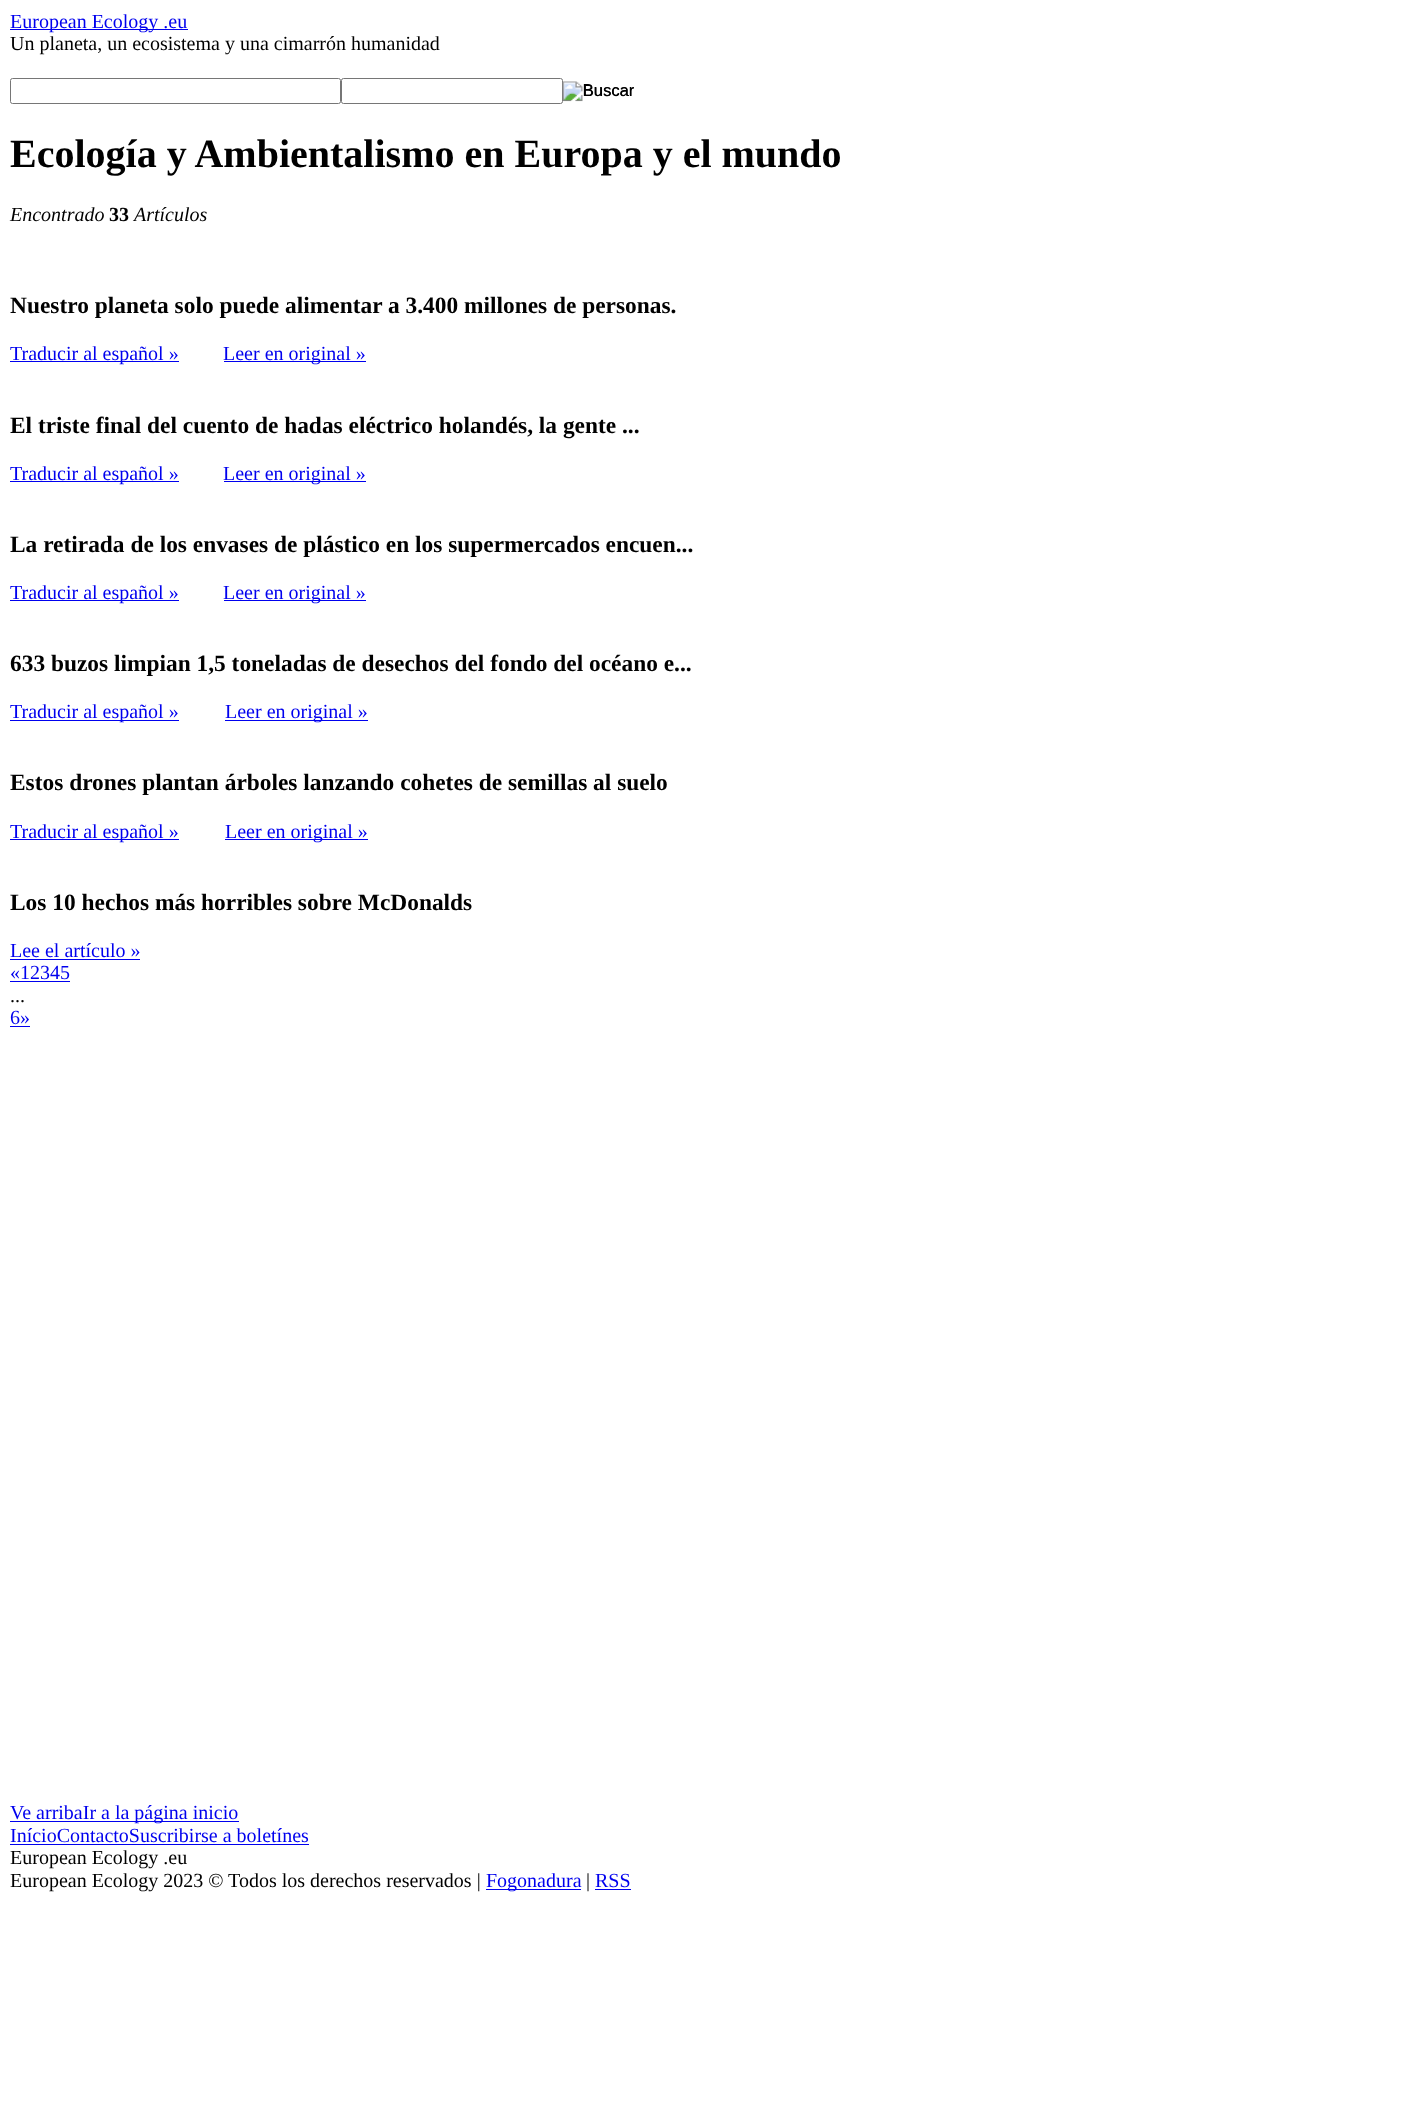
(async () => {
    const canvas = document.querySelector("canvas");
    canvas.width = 1425;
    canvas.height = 2105;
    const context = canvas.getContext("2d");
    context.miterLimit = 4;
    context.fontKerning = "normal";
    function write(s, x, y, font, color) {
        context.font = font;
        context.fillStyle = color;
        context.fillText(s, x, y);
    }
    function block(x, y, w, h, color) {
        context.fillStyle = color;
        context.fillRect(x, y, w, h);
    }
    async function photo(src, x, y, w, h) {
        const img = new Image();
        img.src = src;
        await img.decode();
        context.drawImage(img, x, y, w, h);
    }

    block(0, 0, 1425, 2105, "rgb(255, 255, 255)");
    block(10, 29, 178, 1, "rgb(0, 0, 238)");
    write("European Ecology .eu", 10, 28, "20px Liberation Serif", "rgb(0, 0, 238)");
    write("Un planeta, un ecosistema y una cimarrón humanidad", 10, 50, "20px Liberation Serif", "rgb(0, 0, 0)");
    context.beginPath();
    context.roundRect(10.5, 78.5, 330, 25, 2);
    context.strokeStyle = "rgb(118, 118, 118)";
    context.stroke();
    context.beginPath();
    context.roundRect(341.5, 78.5, 221, 25, 2);
    context.stroke();
    await photo("media/1.png", 562, 81, 72, 21);
    write("Buscar", 583, 96, "16.5px Liberation Sans", "rgb(0, 0, 0)");
    write("Ecología y Ambientalismo en Europa y el mundo", 10, 167, "bold 40px Liberation Serif", "rgb(0, 0, 0)");
    write("Encontrado", 10, 221, "italic 20px Liberation Serif", "rgb(0, 0, 0)");
    write("33", 109, 221, "bold 20px Liberation Serif", "rgb(0, 0, 0)");
    write("Artículos", 134, 221, "italic 20px Liberation Serif", "rgb(0, 0, 0)");
    write("Nuestro planeta solo puede alimentar a 3.400 millones de personas.", 10, 313, "bold 23.4px Liberation Serif", "rgb(0, 0, 0)");
    block(10, 361, 169, 1, "rgb(0, 0, 238)");
    write("Traducir al español »", 10, 360, "20px Liberation Serif", "rgb(0, 0, 238)");
    block(224, 361, 142, 1, "rgb(0, 0, 238)");
    write("Leer en original »", 223, 360, "20px Liberation Serif", "rgb(0, 0, 238)");
    write("El triste final del cuento de hadas eléctrico holandés, la gente ...", 10, 433, "bold 23.4px Liberation Serif", "rgb(0, 0, 0)");
    block(10, 481, 169, 1, "rgb(0, 0, 238)");
    write("Traducir al español »", 10, 480, "20px Liberation Serif", "rgb(0, 0, 238)");
    block(224, 481, 142, 1, "rgb(0, 0, 238)");
    write("Leer en original »", 223, 480, "20px Liberation Serif", "rgb(0, 0, 238)");
    write("La retirada de los envases de plástico en los supermercados encuen...", 10, 552, "bold 23.4px Liberation Serif", "rgb(0, 0, 0)");
    block(10, 600, 169, 1, "rgb(0, 0, 238)");
    write("Traducir al español »", 10, 599, "20px Liberation Serif", "rgb(0, 0, 238)");
    block(224, 600, 142, 1, "rgb(0, 0, 238)");
    write("Leer en original »", 223, 599, "20px Liberation Serif", "rgb(0, 0, 238)");
    write("633 buzos limpian 1,5 toneladas de desechos del fondo del océano e...", 10, 671, "bold 23.4px Liberation Serif", "rgb(0, 0, 0)");
    block(10, 720, 169, 1, "rgb(0, 0, 238)");
    write("Traducir al español »", 10, 718, "20px Liberation Serif", "rgb(0, 0, 238)");
    block(225, 720, 143, 1, "rgb(0, 0, 238)");
    write("Leer en original »", 225, 718, "20px Liberation Serif", "rgb(0, 0, 238)");
    write("Estos drones plantan árboles lanzando cohetes de semillas al suelo", 10, 790, "bold 23.4px Liberation Serif", "rgb(0, 0, 0)");
    block(10, 839, 169, 1, "rgb(0, 0, 238)");
    write("Traducir al español »", 10, 838, "20px Liberation Serif", "rgb(0, 0, 238)");
    block(225, 839, 143, 1, "rgb(0, 0, 238)");
    write("Leer en original »", 225, 838, "20px Liberation Serif", "rgb(0, 0, 238)");
    write("Los 10 hechos más horribles sobre McDonalds", 10, 910, "bold 23.4px Liberation Serif", "rgb(0, 0, 0)");
    write("Lee el artículo »", 10, 957, "20px Liberation Serif", "rgb(0, 0, 238)");
    block(10, 959, 130, 1, "rgb(0, 0, 238)");
    write("«12345", 10, 979, "20px Liberation Serif", "rgb(0, 0, 238)");
    block(10, 981, 60, 1, "rgb(0, 0, 238)");
    write("...", 10, 1002, "20px Liberation Serif", "rgb(0, 0, 0)");
    write("6»", 10, 1024, "20px Liberation Serif", "rgb(0, 0, 238)");
    block(10, 1026, 20, 1, "rgb(0, 0, 238)");
    block(10, 1821, 229, 1, "rgb(0, 0, 238)");
    write("Ve arribaIr a la página inicio", 10, 1819, "20px Liberation Serif", "rgb(0, 0, 238)");
    write("InícioContactoSuscribirse a boletínes", 10, 1842, "20px Liberation Serif", "rgb(0, 0, 238)");
    block(10, 1844, 299, 1, "rgb(0, 0, 238)");
    write("European Ecology .eu", 10, 1864, "20px Liberation Serif", "rgb(0, 0, 0)");
    write("European Ecology 2023 © Todos los derechos reservados |", 10, 1887, "20px Liberation Serif", "rgb(0, 0, 0)");
    block(486, 1889, 95, 1, "rgb(0, 0, 238)");
    write("Fogonadura", 486, 1887, "20px Liberation Serif", "rgb(0, 0, 238)");
    write("|", 586, 1887, "20px Liberation Serif", "rgb(0, 0, 0)");
    write("RSS", 595, 1887, "20px Liberation Serif", "rgb(0, 0, 238)");
    block(595, 1889, 36, 1, "rgb(0, 0, 238)");
})();
